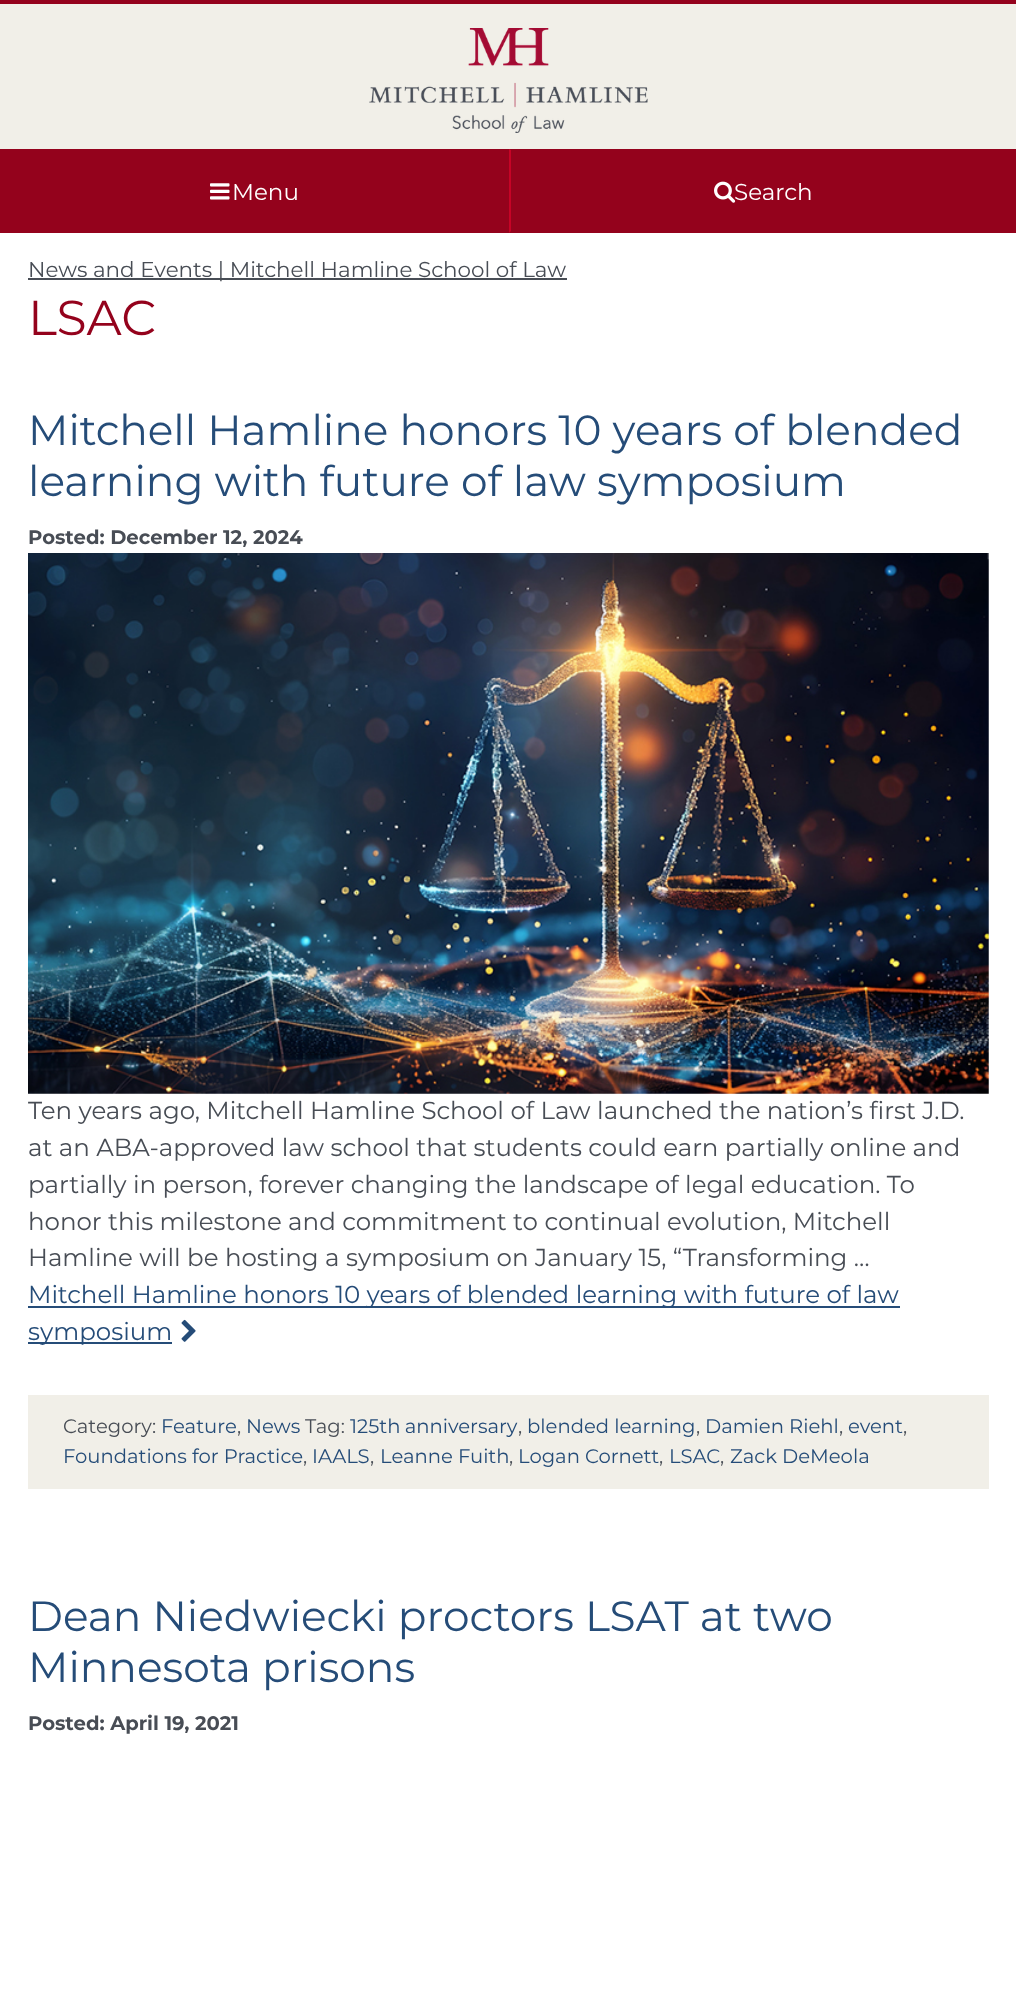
(async () => {
    const canvas = document.querySelector("canvas");
    canvas.width = 1016;
    canvas.height = 2000;
    const context = canvas.getContext("2d");
    context.miterLimit = 4;
    context.fontKerning = "normal";
    function write(s, x, y, font, color) {
        context.font = font;
        context.fillStyle = color;
        context.fillText(s, x, y);
    }
    function block(x, y, w, h, color) {
        context.fillStyle = color;
        context.fillRect(x, y, w, h);
    }
    async function photo(src, x, y, w, h) {
        const img = new Image();
        img.src = src;
        await img.decode();
        context.drawImage(img, x, y, w, h);
    }

    block(0, 0, 1016, 2000, "rgb(255, 255, 255)");
    block(0, 4, 1016, 145, "rgb(241, 239, 232)");
    block(0, 0, 1016, 4, "rgb(148, 2, 28)");
    await photo("media/1.png", 369, 28, 279, 105);
    block(0, 149, 1016, 84, "rgb(148, 2, 28)");
    await photo("media/2.png", 210, 183, 20, 17);
    write("Menu", 232, 200, "23px Montserrat", "rgb(255, 255, 255)");
    context.fillStyle = "rgb(198, 3, 38)";
    context.beginPath();
    context.moveTo(509, 233);
    context.lineTo(509, 149);
    context.lineTo(511, 150);
    context.lineTo(511, 231);
    context.closePath();
    context.fill();
    await photo("media/3.png", 714, 181, 22, 22);
    write("Search", 734, 200, "23px Montserrat", "rgb(255, 255, 255)");
    block(28, 278, 539, 2, "rgb(72, 77, 85)");
    write("News and Events | Mitchell Hamline School of Law", 28, 277, "21.45px Montserrat", "rgb(72, 77, 85)");
    write("LSAC", 28, 335, "49px Montserrat", "rgb(148, 2, 28)");
    write("Mitchell Hamline honors 10 years of blended", 28, 445, "42.3px Montserrat", "rgb(37, 76, 120)");
    write("learning with future of law symposium", 28, 496, "42.3px Montserrat", "rgb(37, 76, 120)");
    write("Posted: December 12, 2024", 28, 544, "bold 19.6px Montserrat", "rgb(72, 77, 85)");
    await photo("media/4.png", 28, 553, 961, 541);
    write("Ten years ago, Mitchell Hamline School of Law launched the nation’s first J.D.", 28, 1119, "24.5px Montserrat", "rgb(72, 77, 85)");
    write("at an ABA-approved law school that students could earn partially online and", 28, 1156, "24.5px Montserrat", "rgb(72, 77, 85)");
    write("partially in person, forever changing the landscape of legal education. To", 28, 1193, "24.5px Montserrat", "rgb(72, 77, 85)");
    write("honor this milestone and commitment to continual evolution, Mitchell", 28, 1230, "24.5px Montserrat", "rgb(72, 77, 85)");
    write("Hamline will be hosting a symposium on January 15, “Transforming …", 28, 1266, "24.5px Montserrat", "rgb(72, 77, 85)");
    block(28, 1306, 872, 2, "rgb(37, 76, 120)");
    write("Mitchell Hamline honors 10 years of blended learning with future of law", 28, 1303, "24.5px Montserrat", "rgb(37, 76, 120)");
    block(28, 1342, 144, 2, "rgb(37, 76, 120)");
    write("symposium", 28, 1340, "24.5px Montserrat", "rgb(37, 76, 120)");
    await photo("media/5.png", 181, 1319, 15, 23);
    block(28, 1395, 961, 94, "rgb(241, 239, 232)");
    write("Category:", 63, 1433, "19.6px Montserrat", "rgb(72, 77, 85)");
    write("Feature", 161, 1433, "19.6px Montserrat", "rgb(37, 76, 120)");
    write(",", 237, 1433, "19.6px Montserrat", "rgb(72, 77, 85)");
    write("News", 246, 1433, "19.6px Montserrat", "rgb(37, 76, 120)");
    write("Tag:", 305, 1433, "19.6px Montserrat", "rgb(72, 77, 85)");
    context.wordSpacing = "-1px";
    write("125th anniversary", 350, 1433, "19.6px Montserrat", "rgb(37, 76, 120)");
    context.wordSpacing = "0px";
    write(",", 518, 1433, "19.6px Montserrat", "rgb(72, 77, 85)");
    write("blended learning", 527, 1433, "19.6px Montserrat", "rgb(37, 76, 120)");
    write(",", 696, 1433, "19.6px Montserrat", "rgb(72, 77, 85)");
    write("Damien Riehl", 705, 1433, "19.6px Montserrat", "rgb(37, 76, 120)");
    write(",", 839, 1433, "19.6px Montserrat", "rgb(72, 77, 85)");
    write("event", 848, 1433, "19.6px Montserrat", "rgb(37, 76, 120)");
    write(",", 903, 1433, "19.6px Montserrat", "rgb(72, 77, 85)");
    write("Foundations for Practice", 63, 1463, "19.6px Montserrat", "rgb(37, 76, 120)");
    write(",", 303, 1463, "19.6px Montserrat", "rgb(72, 77, 85)");
    write("IAALS", 312, 1463, "19.6px Montserrat", "rgb(37, 76, 120)");
    write(",", 370, 1463, "19.6px Montserrat", "rgb(72, 77, 85)");
    write("Leanne Fuith", 380, 1463, "19.6px Montserrat", "rgb(37, 76, 120)");
    write(",", 509, 1463, "19.6px Montserrat", "rgb(72, 77, 85)");
    write("Logan Cornett", 518, 1463, "19.6px Montserrat", "rgb(37, 76, 120)");
    write(",", 659, 1463, "19.6px Montserrat", "rgb(72, 77, 85)");
    write("LSAC", 669, 1463, "19.6px Montserrat", "rgb(37, 76, 120)");
    write(",", 720, 1463, "19.6px Montserrat", "rgb(72, 77, 85)");
    write("Zack DeMeola", 730, 1463, "19.6px Montserrat", "rgb(37, 76, 120)");
    write("Dean Niedwiecki proctors LSAT at two", 28, 1631, "42.3px Montserrat", "rgb(37, 76, 120)");
    write("Minnesota prisons", 28, 1682, "42.3px Montserrat", "rgb(37, 76, 120)");
    write("Posted: April 19, 2021", 28, 1730, "bold 19.6px Montserrat", "rgb(72, 77, 85)");
})();
